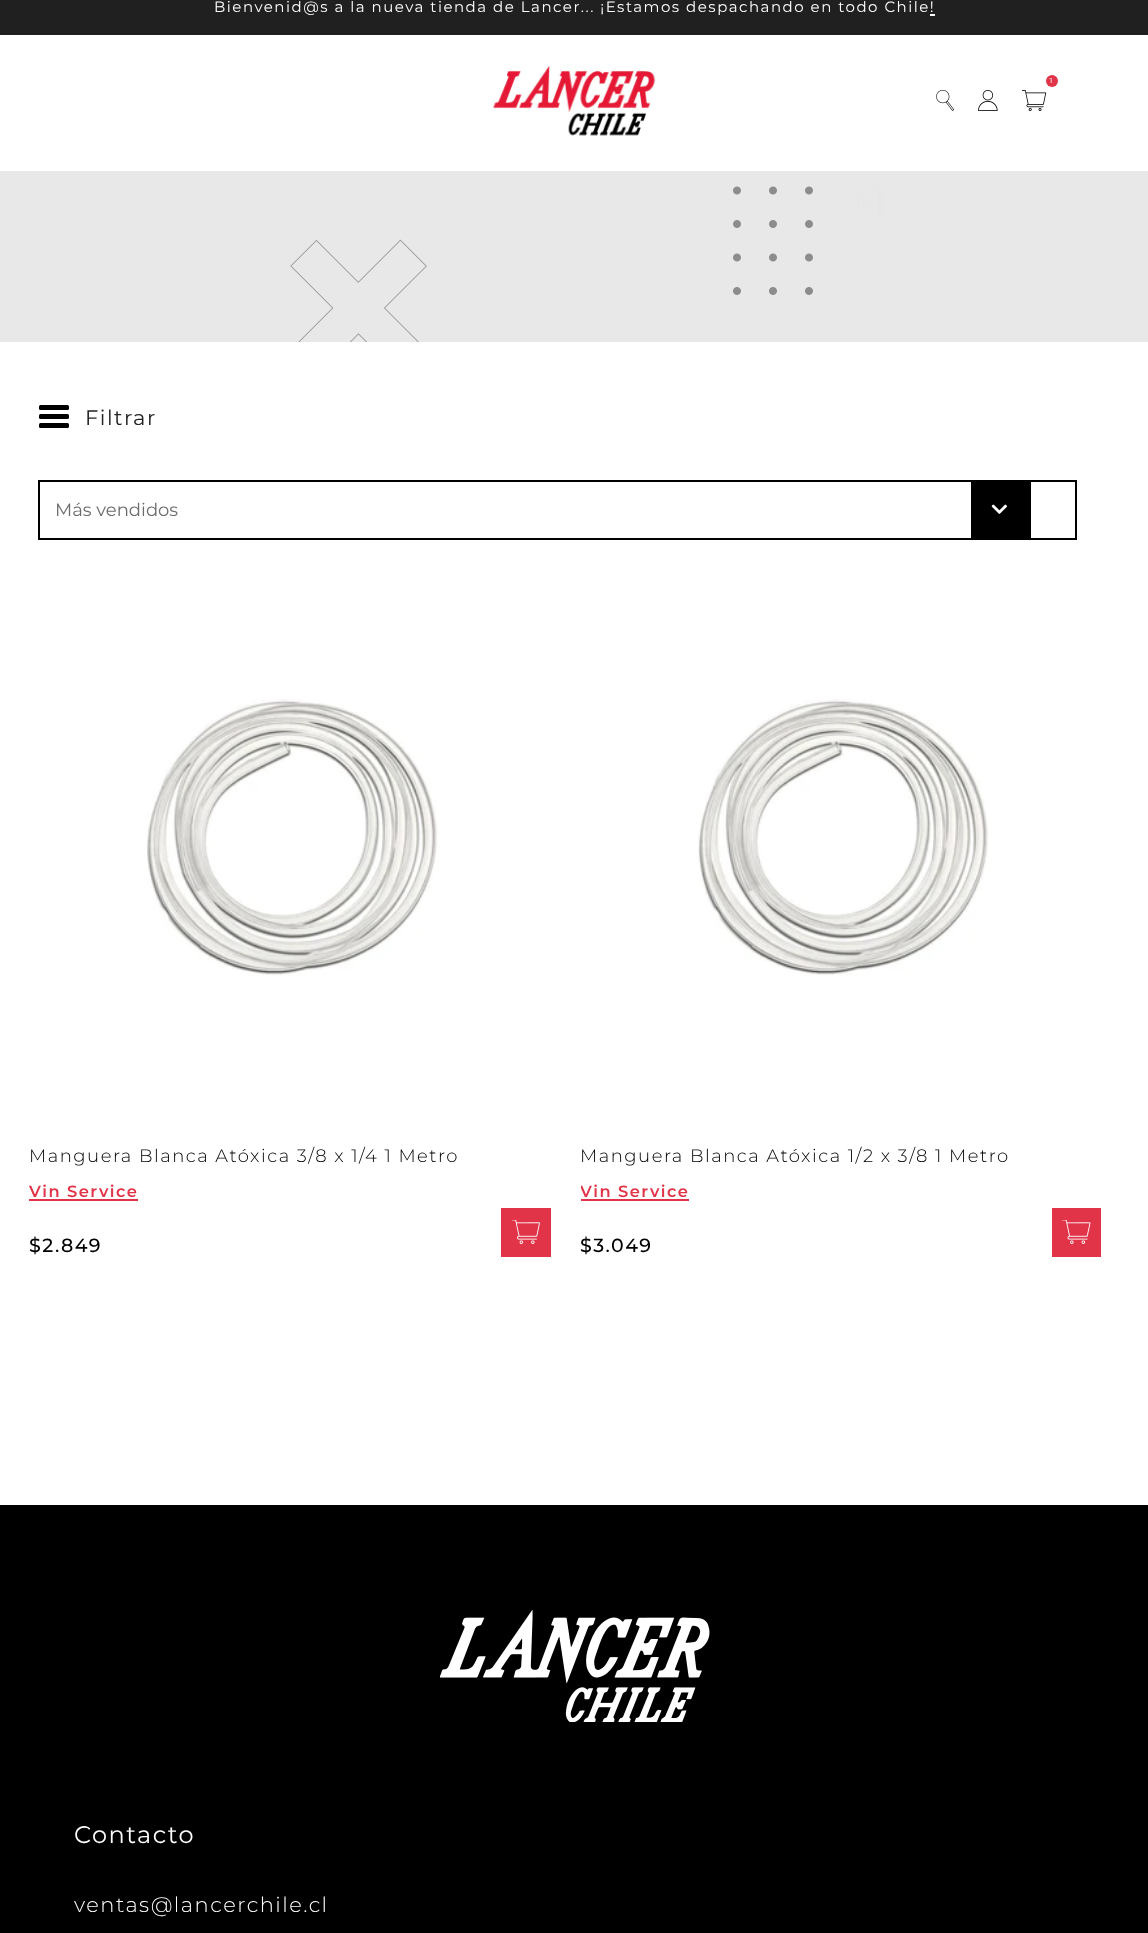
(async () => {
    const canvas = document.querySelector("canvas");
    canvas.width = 1148;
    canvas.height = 1933;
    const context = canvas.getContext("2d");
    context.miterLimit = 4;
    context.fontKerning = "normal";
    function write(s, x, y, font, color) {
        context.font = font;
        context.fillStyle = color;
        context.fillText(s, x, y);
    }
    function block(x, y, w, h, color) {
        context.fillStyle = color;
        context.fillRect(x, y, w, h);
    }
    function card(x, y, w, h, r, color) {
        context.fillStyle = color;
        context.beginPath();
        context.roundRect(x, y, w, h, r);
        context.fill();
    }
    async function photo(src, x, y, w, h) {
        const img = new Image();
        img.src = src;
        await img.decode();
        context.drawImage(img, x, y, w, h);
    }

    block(0, 0, 1148, 1933, "rgb(255, 255, 255)");
    block(0, 0, 1148, 35, "rgb(32, 32, 32)");
    context.letterSpacing = "1.5px";
    write("Bienvenid@s a la nueva tienda de Lancer... ¡Estamos despachando en todo Chile!", 214, 12, "100 15px Montserrat", "rgb(255, 255, 255)");
    block(930, 14, 5, 2, "rgb(255, 255, 255)");
    await photo("media/1.png", 493, 65, 163, 71);
    context.fillStyle = "rgb(226, 52, 73)";
    context.beginPath();
    context.arc(1052, 81, 6, 0, Math.PI * 2);
    context.fill();
    context.letterSpacing = "1px";
    write("1", 1049, 83, "7px Roboto", "rgb(255, 255, 255)");
    await photo("media/2.png", 1022, 90, 25, 21);
    await photo("media/3.png", 936, 90, 18, 21);
    await photo("media/4.png", 978, 90, 20, 21);
    await photo("media/5.png", 0, 171, 1148, 171);
    card(39, 414, 30, 5, 1.5, "rgb(0, 0, 0)");
    card(39, 405, 30, 5, 1.5, "rgb(0, 0, 0)");
    card(39, 423, 30, 5, 1.5, "rgb(0, 0, 0)");
    context.letterSpacing = "1.5px";
    write("Filtrar", 85, 425, "100 21px Montserrat", "rgb(34, 34, 34)");
    block(971, 482, 60, 56, "rgb(0, 0, 0)");
    await photo("media/6.png", 991, 504, 16, 10);
    context.strokeStyle = "rgb(0, 0, 0)";
    context.lineWidth = 2;
    context.strokeRect(39, 481, 1037, 58);
    context.letterSpacing = "0px";
    write("Más vendidos", 55, 516, "100 18px Montserrat", "rgb(107, 107, 107)");
    await photo("media/7.png", 146, 699, 292, 277);
    context.letterSpacing = "1.5px";
    write("Manguera Blanca Atóxica 3/8 x 1/4 1 Metro", 29, 1162, "300 18px Montserrat", "rgb(0, 0, 0)");
    write("Vin Service", 29, 1197, "600 16.25px Montserrat", "rgb(226, 52, 73)");
    block(29, 1199, 109, 2, "rgb(226, 52, 73)");
    write("$2.849", 29, 1252, "500 19px Montserrat", "rgb(0, 0, 0)");
    block(501, 1208, 50, 49, "rgb(226, 52, 73)");
    await photo("media/8.png", 512, 1220, 28, 24);
    await photo("media/9.png", 698, 699, 291, 277);
    write("Manguera Blanca Atóxica 1/2 x 3/8 1 Metro", 580, 1162, "300 18px Montserrat", "rgb(0, 0, 0)");
    context.save();
    context.beginPath();
    context.rect(581, 1182, 520, 20);
    context.clip();
    write("Vin Service", 580, 1197, "600 16.25px Montserrat", "rgb(226, 52, 73)");
    context.restore();
    block(581, 1199, 108, 2, "rgb(226, 52, 73)");
    write("$3.049", 580, 1252, "500 19px Montserrat", "rgb(0, 0, 0)");
    block(1052, 1208, 49, 49, "rgb(226, 52, 73)");
    await photo("media/10.png", 1062, 1220, 29, 24);
    block(0, 1505, 1148, 428, "rgb(0, 0, 0)");
    await photo("media/11.png", 440, 1610, 270, 112);
    write("Contacto", 74, 1843, "100 24px Montserrat", "rgb(255, 255, 255)");
    write("ventas@lancerchile.cl", 74, 1912, "300 21px Montserrat", "rgb(255, 255, 255)");
})();
